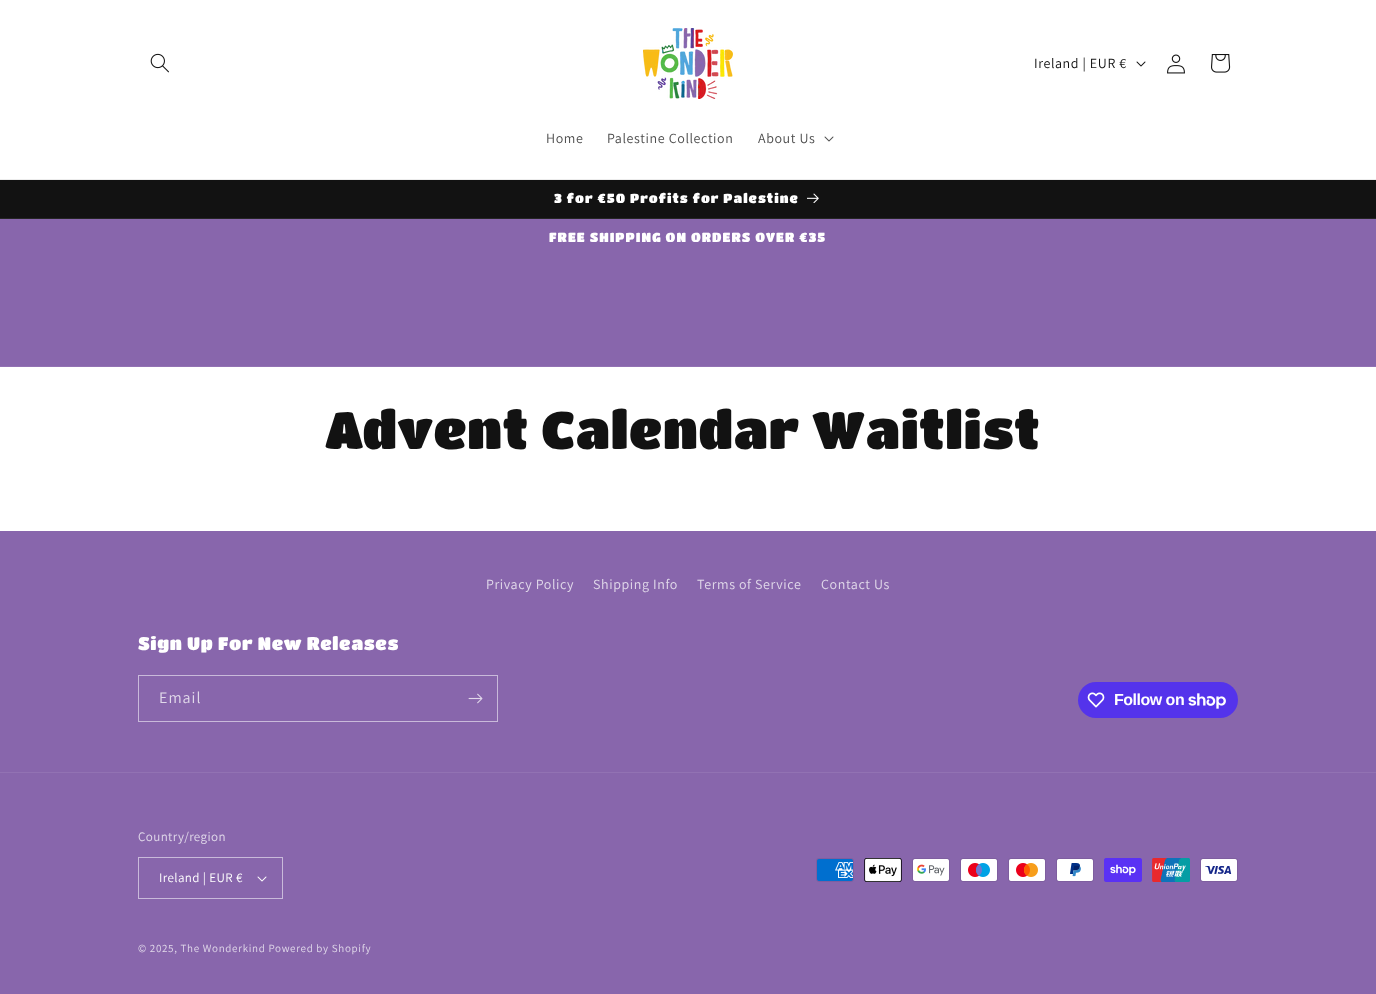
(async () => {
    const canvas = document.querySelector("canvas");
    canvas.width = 1376;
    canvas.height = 994;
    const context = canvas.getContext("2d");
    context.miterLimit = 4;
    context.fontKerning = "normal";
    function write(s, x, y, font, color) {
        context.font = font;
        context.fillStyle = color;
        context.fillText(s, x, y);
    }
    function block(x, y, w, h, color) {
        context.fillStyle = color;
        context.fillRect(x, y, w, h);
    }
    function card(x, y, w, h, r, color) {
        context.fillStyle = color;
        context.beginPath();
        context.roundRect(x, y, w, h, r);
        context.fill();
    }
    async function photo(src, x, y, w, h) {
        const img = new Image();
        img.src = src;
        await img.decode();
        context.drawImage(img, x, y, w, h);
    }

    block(0, 0, 1376, 994, "rgb(255, 255, 255)");
    block(0, 179, 1376, 1, "rgb(236, 236, 236)");
    await photo("media/1.png", 150, 53, 19, 20);
    await photo("media/2.png", 643, 28, 90, 71);
    context.letterSpacing = "0.6px";
    write("Ireland | EUR €", 1034, 68, "14px Assistant", "rgb(18, 18, 18)");
    await photo("media/3.png", 1136, 61, 10, 6);
    await photo("media/4.png", 1167, 54, 18, 20);
    await photo("media/5.png", 1211, 54, 20, 19);
    write("Home", 546, 143, "14px Assistant", "rgb(77, 77, 77)");
    write("Palestine Collection", 607, 143, "14px Assistant", "rgb(77, 77, 77)");
    write("About Us", 758, 143, "14px Assistant", "rgb(77, 77, 77)");
    await photo("media/6.png", 824, 136, 10, 6);
    block(0, 180, 1376, 38, "rgb(18, 18, 18)");
    block(0, 218, 1376, 1, "rgb(37, 37, 37)");
    context.letterSpacing = "1px";
    write("3 for €50 Profits for Palestine", 554, 203, "13px Titan One", "rgb(255, 255, 255)");
    await photo("media/7.png", 807, 193, 12, 10);
    block(0, 219, 1376, 147, "rgb(136, 102, 172)");
    block(0, 366, 1376, 1, "rgb(146, 114, 179)");
    write("FREE SHIPPING ON ORDERS OVER €35", 549, 242, "13px Titan One", "rgb(255, 255, 255)");
    context.letterSpacing = "0.6px";
    write("Advent Calendar Waitlist", 325, 449, "52px Titan One", "rgb(18, 18, 18)");
    block(0, 531, 1376, 463, "rgb(136, 102, 172)");
    write("Privacy Policy", 486, 589, "14px Assistant", "rgb(225, 217, 234)");
    write("Shipping Info", 593, 589, "14px Assistant", "rgb(225, 217, 234)");
    write("Terms of Service", 697, 589, "14px Assistant", "rgb(225, 217, 234)");
    write("Contact Us", 821, 589, "14px Assistant", "rgb(225, 217, 234)");
    write("Sign Up For New Releases", 138, 650, "18px Titan One", "rgb(255, 255, 255)");
    context.strokeStyle = "rgb(201, 186, 218)";
    context.strokeRect(138.5, 675.5, 359, 46);
    context.letterSpacing = "1px";
    write("Email", 159, 703, "16px Assistant", "rgb(225, 217, 234)");
    await photo("media/8.png", 468, 693, 15, 11);
    card(1078, 682, 160, 36, 18, "rgb(84, 51, 235)");
    await photo("media/9.png", 1087, 692, 18, 16);
    context.letterSpacing = "-0.5px";
    write("Follow on", 1114, 705, "bold 16px Liberation Sans", "rgb(255, 255, 255)");
    await photo("media/10.png", 1188, 693, 38, 16);
    block(0, 772, 1376, 1, "rgb(146, 114, 179)");
    context.letterSpacing = "0.4px";
    write("Country/region", 138, 841, "13px Assistant", "rgb(225, 217, 234)");
    await photo("media/11.png", 257, 876, 10, 6);
    context.strokeRect(138.5, 857.5, 144, 41);
    write("Ireland | EUR €", 159, 882, "13px Assistant", "rgb(255, 255, 255)");
    await photo("media/12.png", 816, 858, 38, 24);
    await photo("media/13.png", 864, 858, 38, 24);
    await photo("media/14.png", 912, 858, 38, 24);
    await photo("media/15.png", 960, 858, 38, 24);
    await photo("media/16.png", 1008, 858, 38, 24);
    await photo("media/17.png", 1056, 858, 38, 24);
    await photo("media/18.png", 1104, 858, 38, 24);
    await photo("media/19.png", 1152, 858, 38, 24);
    await photo("media/20.png", 1200, 858, 38, 24);
    context.letterSpacing = "0.7px";
    write("© 2025, The Wonderkind Powered by Shopify", 138, 952, "11px Assistant", "rgb(225, 217, 234)");
})();
